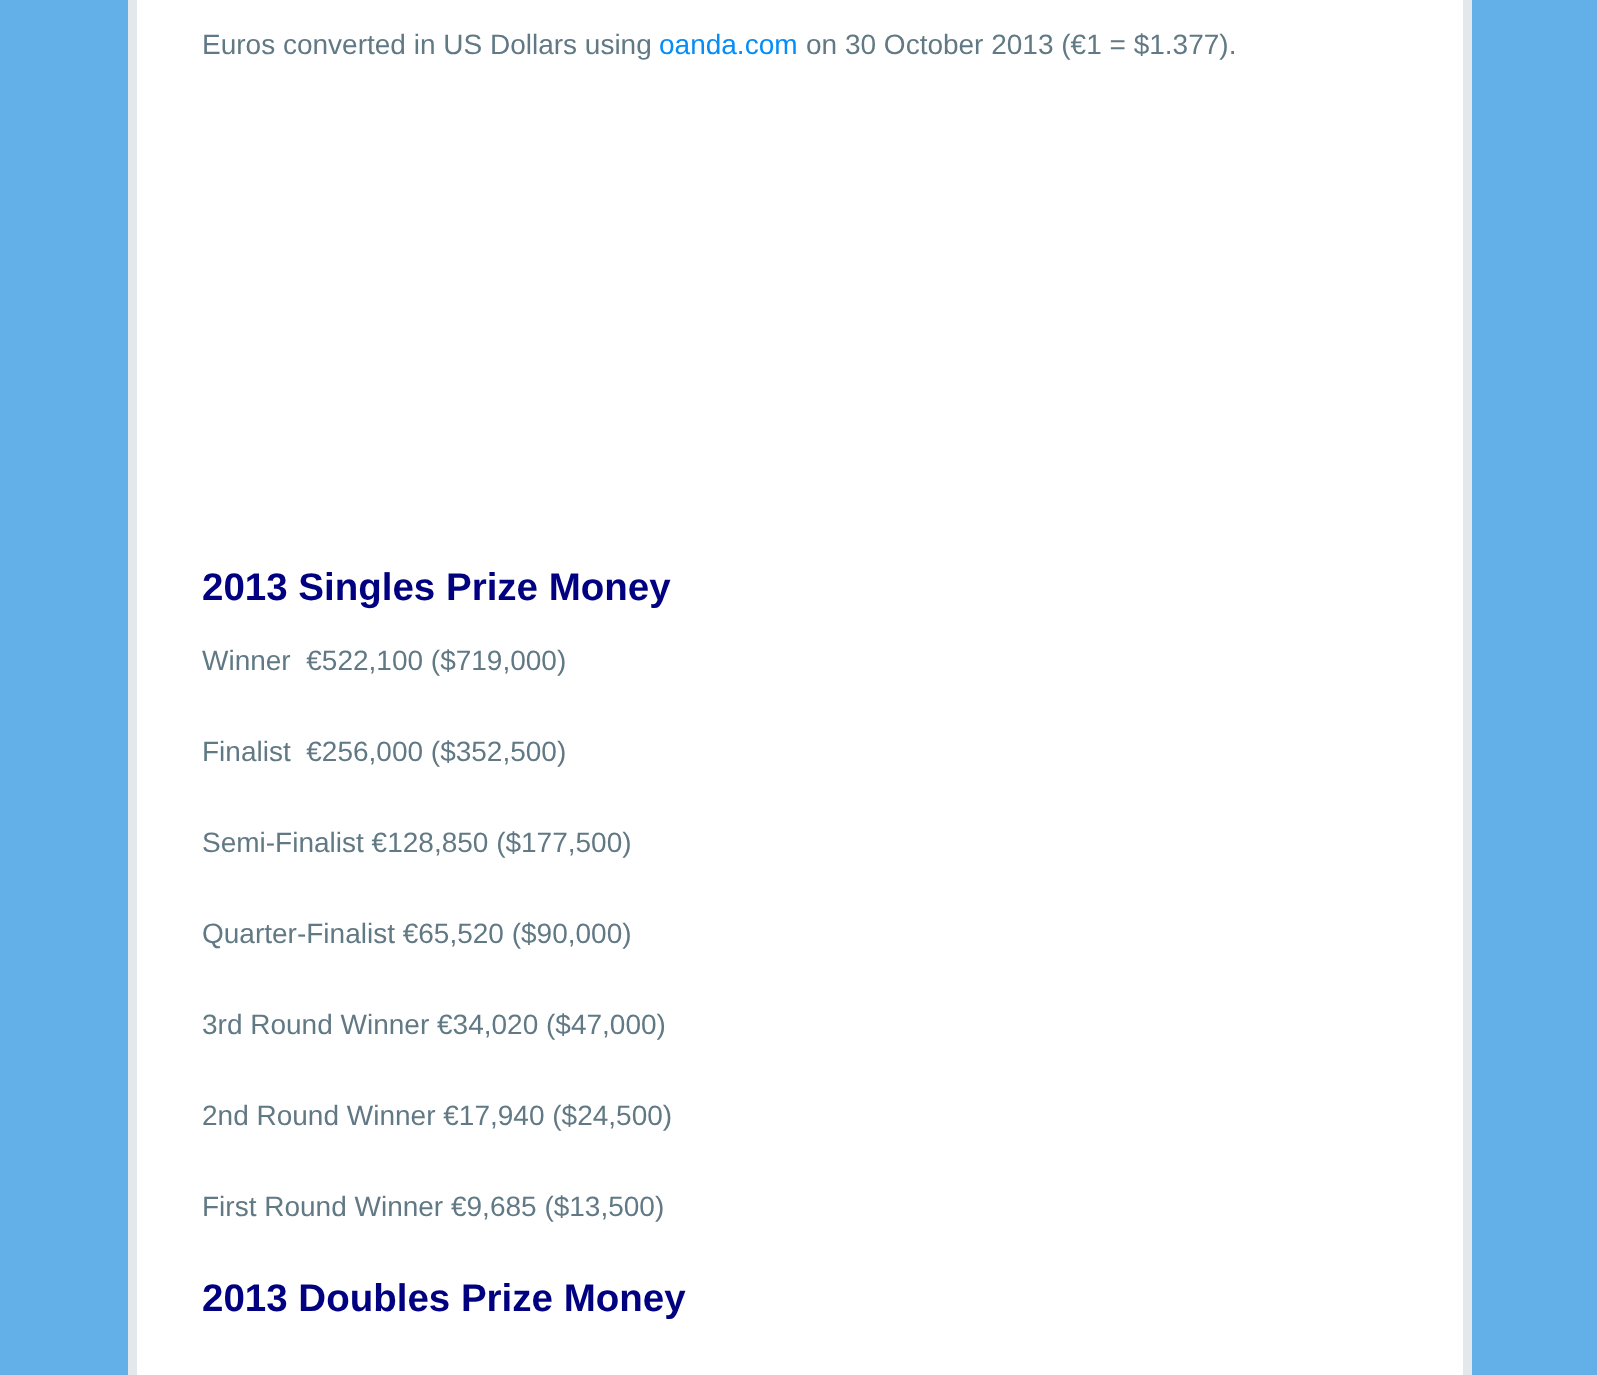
(async () => {
    const canvas = document.querySelector("canvas");
    canvas.width = 1597;
    canvas.height = 1375;
    const context = canvas.getContext("2d");
    context.miterLimit = 4;
    context.fontKerning = "normal";
    function write(s, x, y, font, color) {
        context.font = font;
        context.fillStyle = color;
        context.fillText(s, x, y);
    }
    function block(x, y, w, h, color) {
        context.fillStyle = color;
        context.fillRect(x, y, w, h);
    }

    block(0, 0, 1597, 1375, "rgb(99, 176, 232)");
    block(128, 0, 1344, 1375, "rgb(226, 232, 235)");
    block(137, 0, 1326, 1375, "rgb(255, 255, 255)");
    write("Euros converted in US Dollars using", 202, 54, "28px Liberation Sans", "rgb(97, 121, 132)");
    write("oanda.com", 659, 54, "28px Liberation Sans", "rgb(4, 141, 249)");
    write("on 30 October 2013 (€1 = $1.377).", 806, 54, "28px Liberation Sans", "rgb(97, 121, 132)");
    write("2013 Singles Prize Money", 202, 600, "bold 38.5px Liberation Sans", "rgb(0, 0, 128)");
    write("Winner  €522,100 ($719,000)", 202, 670, "28px Liberation Sans", "rgb(97, 121, 132)");
    write("Finalist  €256,000 ($352,500)", 202, 761, "28px Liberation Sans", "rgb(97, 121, 132)");
    write("Semi-Finalist €128,850 ($177,500)", 202, 852, "28px Liberation Sans", "rgb(97, 121, 132)");
    write("Quarter-Finalist €65,520 ($90,000)", 202, 943, "28px Liberation Sans", "rgb(97, 121, 132)");
    write("3rd Round Winner €34,020 ($47,000)", 202, 1034, "28px Liberation Sans", "rgb(97, 121, 132)");
    write("2nd Round Winner €17,940 ($24,500)", 202, 1125, "28px Liberation Sans", "rgb(97, 121, 132)");
    write("First Round Winner €9,685 ($13,500)", 202, 1216, "28px Liberation Sans", "rgb(97, 121, 132)");
    write("2013 Doubles Prize Money", 202, 1311, "bold 38.5px Liberation Sans", "rgb(0, 0, 128)");
})();
